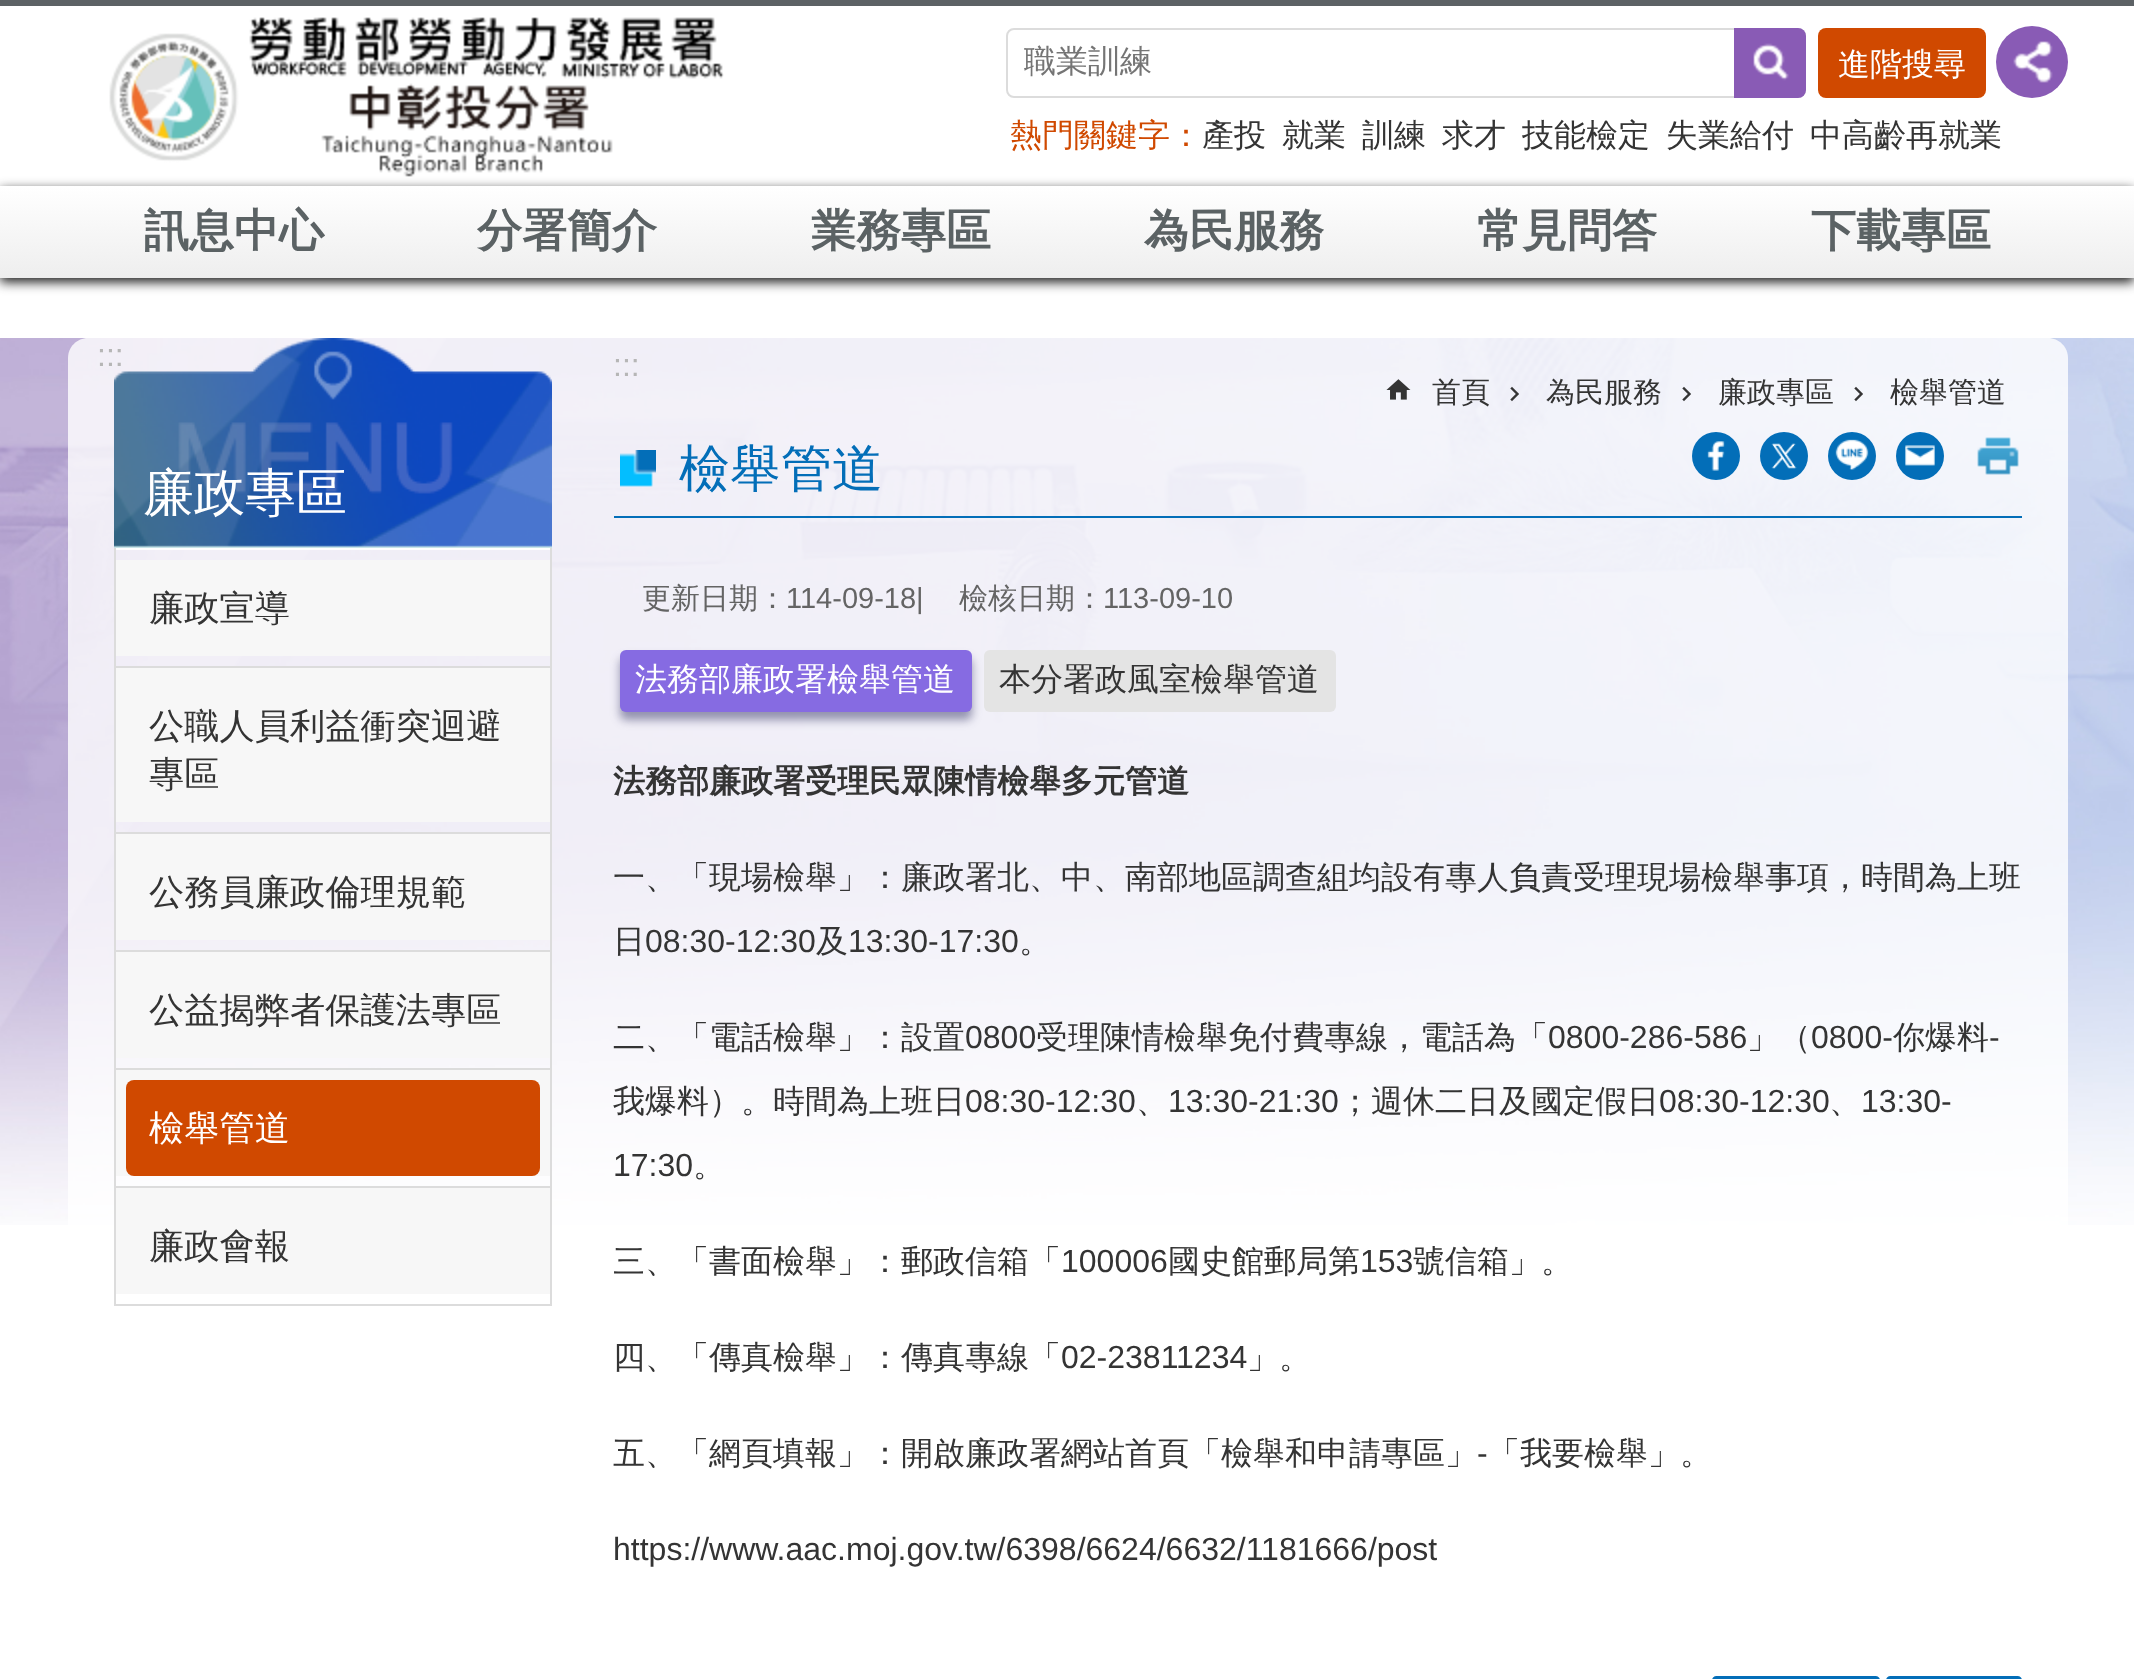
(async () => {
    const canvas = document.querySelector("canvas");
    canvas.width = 2134;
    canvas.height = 1679;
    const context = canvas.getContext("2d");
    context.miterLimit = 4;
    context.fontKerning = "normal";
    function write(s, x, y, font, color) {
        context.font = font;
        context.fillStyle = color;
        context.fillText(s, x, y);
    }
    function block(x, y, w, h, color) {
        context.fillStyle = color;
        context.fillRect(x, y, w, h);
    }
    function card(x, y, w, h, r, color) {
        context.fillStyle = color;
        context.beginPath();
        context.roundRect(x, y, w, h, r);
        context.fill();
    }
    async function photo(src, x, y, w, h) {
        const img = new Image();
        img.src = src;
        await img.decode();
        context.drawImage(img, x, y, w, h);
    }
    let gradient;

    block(0, 0, 2134, 1679, "rgb(255, 255, 255)");
    block(0, 0, 2134, 6, "rgb(93, 98, 101)");
    context.fillStyle = "rgb(26, 26, 26)";
    context.filter = "blur(6px)";
    context.beginPath();
    context.rect(0, 190, 2134, 92);
    context.fill();
    context.filter = "none";
    await photo("media/1.png", 109, 17, 615, 160);
    context.beginPath();
    context.roundRect(1007, 29, 798, 68, 7);
    context.strokeStyle = "rgb(220, 220, 220)";
    context.lineWidth = 2;
    context.stroke();
    write("職業訓練", 1024, 72, "500 32px WenQuanYi Zen Hei", "rgb(117, 117, 117)");
    context.fillStyle = "rgb(137, 91, 181)";
    context.beginPath();
    context.roundRect(1734, 28, 72, 70, [0, 8, 8, 0]);
    context.fill();
    await photo("media/2.png", 1753, 43, 36, 38);
    card(1818, 28, 168, 70, 8, "rgb(208, 73, 0)");
    write("進階搜尋", 1838, 75, "500 32px WenQuanYi Zen Hei", "rgb(255, 255, 255)");
    context.fillStyle = "rgb(137, 91, 181)";
    context.beginPath();
    context.arc(2032, 62, 36, 0, Math.PI * 2);
    context.fill();
    await photo("media/3.png", 2013, 41, 40, 42);
    write("熱門關鍵字：", 1010, 146, "500 32px WenQuanYi Zen Hei", "rgb(208, 73, 0)");
    write("產投", 1202, 146, "500 32px WenQuanYi Zen Hei", "rgb(52, 52, 52)");
    write("就業", 1282, 146, "500 32px WenQuanYi Zen Hei", "rgb(52, 52, 52)");
    write("訓練", 1362, 146, "500 32px WenQuanYi Zen Hei", "rgb(52, 52, 52)");
    write("求才", 1442, 146, "500 32px WenQuanYi Zen Hei", "rgb(52, 52, 52)");
    write("技能檢定", 1522, 146, "500 32px WenQuanYi Zen Hei", "rgb(52, 52, 52)");
    write("失業給付", 1666, 146, "500 32px WenQuanYi Zen Hei", "rgb(52, 52, 52)");
    write("中高齡再就業", 1810, 146, "500 32px WenQuanYi Zen Hei", "rgb(52, 52, 52)");
    gradient = context.createLinearGradient(1067, 186, 1067, 278);
    gradient.addColorStop(0, "rgb(255, 255, 255)");
    gradient.addColorStop(1, "rgb(238, 238, 238)");
    context.fillStyle = gradient;
    context.fillRect(0, 186, 2134, 92);
    write("訊息中心", 144, 246, "bold 45px WenQuanYi Zen Hei", "rgb(91, 98, 100)");
    write("分署簡介", 477, 246, "bold 45px WenQuanYi Zen Hei", "rgb(91, 98, 100)");
    write("業務專區", 811, 246, "bold 45px WenQuanYi Zen Hei", "rgb(91, 98, 100)");
    write("為民服務", 1144, 246, "bold 45px WenQuanYi Zen Hei", "rgb(91, 98, 100)");
    write("常見問答", 1477, 246, "bold 45px WenQuanYi Zen Hei", "rgb(91, 98, 100)");
    write("下載專區", 1811, 246, "bold 45px WenQuanYi Zen Hei", "rgb(91, 98, 100)");
    await photo("media/4.png", 0, 338, 2134, 887);
    context.fillStyle = "rgba(255, 255, 255, 0.8)";
    context.beginPath();
    context.moveTo(88, 338);
    context.lineTo(2048, 338);
    context.bezierCurveTo(2059, 338, 2068, 347, 2068, 358);
    context.lineTo(2068, 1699);
    context.lineTo(68, 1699);
    context.lineTo(68, 358);
    context.bezierCurveTo(68, 347, 77, 338, 88, 338);
    context.closePath();
    context.fill();
    await photo("media/5.png", 114, 338, 438, 210);
    write(":::", 97, 366, "32px Liberation Sans", "rgb(182, 182, 182)");
    write("廉政專區", 143, 510, "500 51px WenQuanYi Zen Hei", "rgb(255, 255, 255)");
    block(114, 548, 438, 2, "rgb(255, 255, 255)");
    block(550, 548, 2, 758, "rgb(220, 220, 220)");
    block(114, 1304, 438, 2, "rgb(220, 220, 220)");
    block(114, 548, 2, 758, "rgb(220, 220, 220)");
    block(116, 560, 434, 96, "rgb(247, 247, 247)");
    write("廉政宣導", 149, 620, "500 35.25px WenQuanYi Zen Hei", "rgb(52, 52, 52)");
    block(116, 668, 434, 154, "rgb(247, 247, 247)");
    block(116, 666, 434, 2, "rgb(220, 220, 220)");
    write("公職人員利益衝突迴避", 149, 738, "500 35.25px WenQuanYi Zen Hei", "rgb(52, 52, 52)");
    write("專區", 149, 786, "500 35.25px WenQuanYi Zen Hei", "rgb(52, 52, 52)");
    block(116, 834, 434, 106, "rgb(247, 247, 247)");
    block(116, 832, 434, 2, "rgb(220, 220, 220)");
    write("公務員廉政倫理規範", 149, 904, "500 35.25px WenQuanYi Zen Hei", "rgb(52, 52, 52)");
    block(116, 952, 434, 106, "rgb(247, 247, 247)");
    block(116, 950, 434, 2, "rgb(220, 220, 220)");
    write("公益揭弊者保護法專區", 149, 1022, "500 35.25px WenQuanYi Zen Hei", "rgb(52, 52, 52)");
    block(116, 1070, 434, 106, "rgb(247, 247, 247)");
    block(116, 1068, 434, 2, "rgb(220, 220, 220)");
    card(126, 1080, 414, 96, 8, "rgb(208, 73, 0)");
    write("檢舉管道", 149, 1140, "500 35.25px WenQuanYi Zen Hei", "rgb(255, 255, 255)");
    block(116, 1188, 434, 106, "rgb(247, 247, 247)");
    block(116, 1186, 434, 2, "rgb(220, 220, 220)");
    write("廉政會報", 149, 1258, "500 35.25px WenQuanYi Zen Hei", "rgb(52, 52, 52)");
    write(":::", 613, 376, "32px Liberation Sans", "rgb(182, 182, 182)");
    await photo("media/6.png", 1386, 379, 25, 21);
    write("首頁", 1432, 402, "500 29px WenQuanYi Zen Hei", "rgb(52, 52, 52)");
    await photo("media/7.png", 1510, 386, 9, 16);
    write("為民服務", 1546, 402, "500 29px WenQuanYi Zen Hei", "rgb(52, 52, 52)");
    await photo("media/8.png", 1682, 386, 9, 16);
    write("廉政專區", 1718, 402, "500 29px WenQuanYi Zen Hei", "rgb(52, 52, 52)");
    await photo("media/9.png", 1854, 386, 9, 16);
    write("檢舉管道", 1890, 402, "500 29px WenQuanYi Zen Hei", "rgb(52, 52, 52)");
    block(614, 516, 1408, 2, "rgb(3, 110, 184)");
    await photo("media/10.png", 620, 450, 36, 37);
    write("檢舉管道", 679, 486, "500 51px WenQuanYi Zen Hei", "rgb(3, 110, 184)");
    context.beginPath();
    context.arc(1716, 456, 24, 0, Math.PI * 2);
    context.fill();
    await photo("media/11.png", 1707, 441, 18, 30);
    context.beginPath();
    context.arc(1784, 456, 24, 0, Math.PI * 2);
    context.fill();
    await photo("media/12.png", 1771, 443, 26, 26);
    context.beginPath();
    context.arc(1852, 456, 24, 0, Math.PI * 2);
    context.fill();
    await photo("media/13.png", 1835, 439, 34, 31);
    context.beginPath();
    context.arc(1920, 456, 24, 0, Math.PI * 2);
    context.fill();
    await photo("media/14.png", 1905, 445, 30, 21);
    await photo("media/15.png", 1977, 437, 42, 38);
    write("更新日期：", 642, 608, "500 29px WenQuanYi Zen Hei", "rgb(100, 100, 100)");
    write("114-09-18|", 786, 608, "29px Liberation Sans", "rgb(100, 100, 100)");
    write("檢核日期：", 959, 608, "500 29px WenQuanYi Zen Hei", "rgb(100, 100, 100)");
    write("113-09-10", 1103, 608, "29px Liberation Sans", "rgb(100, 100, 100)");
    context.fillStyle = "rgba(51, 51, 102, 0.5)";
    context.filter = "blur(5px)";
    context.beginPath();
    context.roundRect(620, 658, 352, 62, 6);
    context.fill();
    context.filter = "none";
    card(620, 650, 352, 62, 6, "rgb(134, 107, 226)");
    write("法務部廉政署檢舉管道", 635, 690, "500 32px WenQuanYi Zen Hei", "rgb(255, 255, 255)");
    card(984, 650, 352, 62, 6, "rgb(228, 228, 228)");
    write("本分署政風室檢舉管道", 999, 690, "500 32px WenQuanYi Zen Hei", "rgb(52, 52, 52)");
    write("法務部廉政署受理民眾陳情檢舉多元管道", 613, 792, "bold 32px WenQuanYi Zen Hei", "rgb(52, 52, 52)");
    write("一、「現場檢舉」：廉政署北、中、南部地區調查組均設有專人負責受理現場檢舉事項，時間為上班", 613, 888, "500 32px WenQuanYi Zen Hei", "rgb(52, 52, 52)");
    write("日", 613, 952, "500 32px WenQuanYi Zen Hei", "rgb(52, 52, 52)");
    write("08:30-12:30", 645, 952, "32px Liberation Sans", "rgb(52, 52, 52)");
    write("及", 816, 952, "500 32px WenQuanYi Zen Hei", "rgb(52, 52, 52)");
    write("13:30-17:30", 848, 952, "32px Liberation Sans", "rgb(52, 52, 52)");
    write("。", 1019, 952, "500 32px WenQuanYi Zen Hei", "rgb(52, 52, 52)");
    write("二、「電話檢舉」：設置", 613, 1048, "500 32px WenQuanYi Zen Hei", "rgb(52, 52, 52)");
    write("0800", 965, 1048, "32px Liberation Sans", "rgb(52, 52, 52)");
    write("受理陳情檢舉免付費專線，電話為「", 1036, 1048, "500 32px WenQuanYi Zen Hei", "rgb(52, 52, 52)");
    write("0800-286-586", 1548, 1048, "32px Liberation Sans", "rgb(52, 52, 52)");
    write("」（", 1747, 1048, "500 32px WenQuanYi Zen Hei", "rgb(52, 52, 52)");
    write("0800-", 1811, 1048, "32px Liberation Sans", "rgb(52, 52, 52)");
    write("你爆料", 1893, 1048, "500 32px WenQuanYi Zen Hei", "rgb(52, 52, 52)");
    write("-", 1989, 1048, "32px Liberation Sans", "rgb(52, 52, 52)");
    write("我爆料）。時間為上班日", 613, 1112, "500 32px WenQuanYi Zen Hei", "rgb(52, 52, 52)");
    write("08:30-12:30", 965, 1112, "32px Liberation Sans", "rgb(52, 52, 52)");
    write("、", 1136, 1112, "500 32px WenQuanYi Zen Hei", "rgb(52, 52, 52)");
    write("13:30-21:30", 1168, 1112, "32px Liberation Sans", "rgb(52, 52, 52)");
    write("；週休二日及國定假日", 1339, 1112, "500 32px WenQuanYi Zen Hei", "rgb(52, 52, 52)");
    write("08:30-12:30", 1659, 1112, "32px Liberation Sans", "rgb(52, 52, 52)");
    write("、", 1829, 1112, "500 32px WenQuanYi Zen Hei", "rgb(52, 52, 52)");
    write("13:30-", 1861, 1112, "32px Liberation Sans", "rgb(52, 52, 52)");
    write("17:30", 613, 1176, "32px Liberation Sans", "rgb(52, 52, 52)");
    write("。", 693, 1176, "500 32px WenQuanYi Zen Hei", "rgb(52, 52, 52)");
    write("三、「書面檢舉」：郵政信箱「", 613, 1272, "500 32px WenQuanYi Zen Hei", "rgb(52, 52, 52)");
    write("100006", 1061, 1272, "32px Liberation Sans", "rgb(52, 52, 52)");
    write("國史館郵局第", 1168, 1272, "500 32px WenQuanYi Zen Hei", "rgb(52, 52, 52)");
    write("153", 1360, 1272, "32px Liberation Sans", "rgb(52, 52, 52)");
    write("號信箱」。", 1413, 1272, "500 32px WenQuanYi Zen Hei", "rgb(52, 52, 52)");
    write("四、「傳真檢舉」：傳真專線「", 613, 1368, "500 32px WenQuanYi Zen Hei", "rgb(52, 52, 52)");
    write("02-23811234", 1061, 1368, "32px Liberation Sans", "rgb(52, 52, 52)");
    write("」。", 1247, 1368, "500 32px WenQuanYi Zen Hei", "rgb(52, 52, 52)");
    write("五、「網頁填報」：開啟廉政署網站首頁「檢舉和申請專區」", 613, 1464, "500 32px WenQuanYi Zen Hei", "rgb(52, 52, 52)");
    write("-", 1477, 1464, "32px Liberation Sans", "rgb(52, 52, 52)");
    write("「我要檢舉」。", 1488, 1464, "500 32px WenQuanYi Zen Hei", "rgb(52, 52, 52)");
    write("https://www.aac.moj.gov.tw/6398/6624/6632/1181666/post", 613, 1560, "32px Liberation Sans", "rgb(52, 52, 52)");
    card(1712, 1676, 168, 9, 6, "rgb(3, 110, 184)");
    card(1886, 1676, 136, 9, 6, "rgb(3, 110, 184)");
})();
